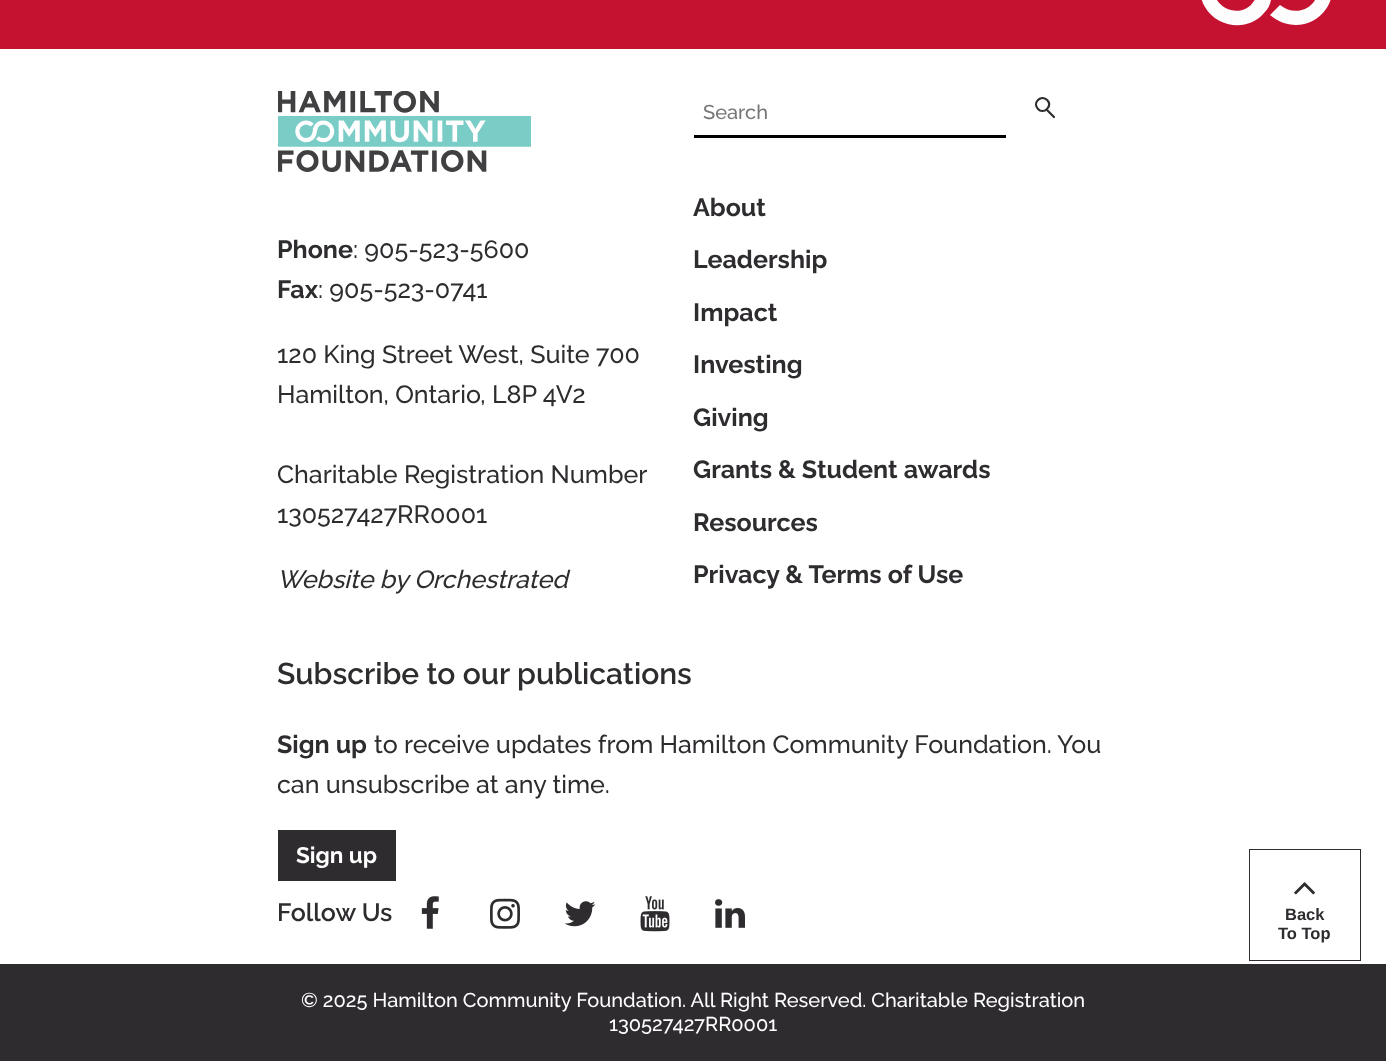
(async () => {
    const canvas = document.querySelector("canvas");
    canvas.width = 1386;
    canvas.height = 1061;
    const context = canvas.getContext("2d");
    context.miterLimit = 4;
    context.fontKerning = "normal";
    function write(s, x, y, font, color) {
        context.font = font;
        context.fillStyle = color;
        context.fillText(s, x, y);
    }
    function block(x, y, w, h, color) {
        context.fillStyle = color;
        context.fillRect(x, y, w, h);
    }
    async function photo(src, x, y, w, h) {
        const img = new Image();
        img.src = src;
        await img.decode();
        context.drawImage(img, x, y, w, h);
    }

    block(0, 0, 1386, 1061, "rgb(255, 255, 255)");
    block(0, 0, 1386, 49, "rgb(196, 18, 48)");
    context.fillStyle = "rgb(253, 253, 253)";
    context.beginPath();
    context.moveTo(1296, -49);
    context.bezierCurveTo(1306, -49, 1316, -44, 1323, -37);
    context.bezierCurveTo(1330, -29, 1332, -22, 1332, -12);
    context.lineTo(1332, -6);
    context.bezierCurveTo(1331, 0, 1329, 5, 1326, 9);
    context.bezierCurveTo(1313, 28, 1287, 30, 1270, 15);
    context.lineTo(1280, 5);
    context.bezierCurveTo(1296, 18, 1319, 8, 1318, -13);
    context.bezierCurveTo(1318, -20, 1314, -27, 1308, -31);
    context.bezierCurveTo(1303, -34, 1297, -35, 1291, -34);
    context.bezierCurveTo(1274, -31, 1275, -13, 1271, 0);
    context.bezierCurveTo(1270, 5, 1268, 9, 1264, 13);
    context.bezierCurveTo(1248, 32, 1217, 28, 1205, 7);
    context.bezierCurveTo(1201, 1, 1200, -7, 1200, -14);
    context.bezierCurveTo(1202, -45, 1240, -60, 1263, -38);
    context.lineTo(1253, -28);
    context.bezierCurveTo(1235, -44, 1208, -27, 1215, -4);
    context.bezierCurveTo(1221, 12, 1244, 17, 1254, 1);
    context.bezierCurveTo(1258, -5, 1258, -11, 1260, -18);
    context.bezierCurveTo(1261, -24, 1263, -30, 1267, -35);
    context.bezierCurveTo(1274, -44, 1284, -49, 1296, -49);
    context.closePath();
    context.fill();
    await photo("media/1.png", 278, 91, 253, 81);
    write("Phone", 277, 258, "bold 25px Raleway", "rgb(47, 44, 48)");
    write(": 905-523-5600", 353, 258, "500 25px Raleway", "rgb(47, 44, 48)");
    write("Fax", 277, 298, "bold 25px Raleway", "rgb(47, 44, 48)");
    write(": 905-523-0741", 318, 298, "500 25px Raleway", "rgb(47, 44, 48)");
    write("120 King Street West, Suite 700", 277, 363, "500 25px Raleway", "rgb(47, 44, 48)");
    write("Hamilton, Ontario, L8P 4V2", 277, 403, "500 25px Raleway", "rgb(47, 44, 48)");
    write("Charitable Registration Number", 277, 483, "500 25px Raleway", "rgb(47, 44, 48)");
    write("130527427RR0001", 277, 523, "500 25px Raleway", "rgb(47, 44, 48)");
    write("Website by Orchestrated", 277, 588, "italic 500 25px Raleway", "rgb(47, 44, 48)");
    block(694, 135, 312, 3, "rgb(0, 0, 0)");
    write("Search", 703, 119, "500 20px Raleway", "rgb(117, 117, 117)");
    context.beginPath();
    context.moveTo(1038, 100);
    context.bezierCurveTo(1044, 94, 1053.5, 103, 1047, 109);
    context.bezierCurveTo(1041, 115, 1032, 106, 1038, 100);
    context.closePath();
    context.strokeStyle = "rgb(47, 44, 48)";
    context.lineWidth = 2.2;
    context.stroke();
    context.beginPath();
    context.moveTo(1047.5, 110.5);
    context.lineTo(1054, 117);
    context.lineCap = "round";
    context.stroke();
    write("About", 693, 216, "bold 25px Raleway", "rgb(47, 44, 48)");
    write("Leadership", 693, 268, "bold 25px Raleway", "rgb(47, 44, 48)");
    write("Impact", 693, 321, "bold 25px Raleway", "rgb(47, 44, 48)");
    write("Investing", 693, 373, "bold 25px Raleway", "rgb(47, 44, 48)");
    write("Giving", 693, 426, "bold 25px Raleway", "rgb(47, 44, 48)");
    write("Grants & Student awards", 693, 478, "bold 25px Raleway", "rgb(47, 44, 48)");
    write("Resources", 693, 531, "bold 25px Raleway", "rgb(47, 44, 48)");
    write("Privacy & Terms of Use", 693, 583, "bold 25px Raleway", "rgb(47, 44, 48)");
    write("Subscribe to our publications", 277, 684, "600 30px Raleway", "rgb(47, 44, 48)");
    write("Sign up", 277, 753, "bold 25px Raleway", "rgb(47, 44, 48)");
    write("to receive updates from Hamilton Community Foundation. You", 374, 753, "500 25px Raleway", "rgb(47, 44, 48)");
    write("can unsubscribe at any time.", 277, 793, "500 25px Raleway", "rgb(47, 44, 48)");
    block(278, 830, 118, 51, "rgb(47, 44, 48)");
    write("Sign up", 296, 863, "bold 22.5px Raleway", "rgb(255, 255, 255)");
    write("Follow Us", 277, 921, "600 25px Raleway", "rgb(47, 44, 48)");
    await photo("media/2.png", 421, 896, 18, 33);
    await photo("media/3.png", 490, 898, 30, 31);
    await photo("media/4.png", 564, 901, 32, 26);
    await photo("media/5.png", 640, 896, 30, 36);
    await photo("media/6.png", 715, 899, 30, 29);
    block(0, 964, 1386, 97, "rgb(47, 44, 48)");
    write("© 2025 Hamilton Community Foundation. All Right Reserved. Charitable Registration", 301, 1007, "500 20px Raleway", "rgb(255, 255, 255)");
    write("130527427RR0001", 609, 1031, "500 20px Raleway", "rgb(255, 255, 255)");
    context.lineWidth = 1;
    context.strokeRect(1249.5, 849.5, 111, 111);
    await photo("media/7.png", 1294, 882, 21, 13);
    write("Back", 1285, 920, "bold 16.5px Liberation Sans", "rgb(47, 44, 48)");
    write("To Top", 1278, 939, "bold 16.5px Liberation Sans", "rgb(47, 44, 48)");
})();
